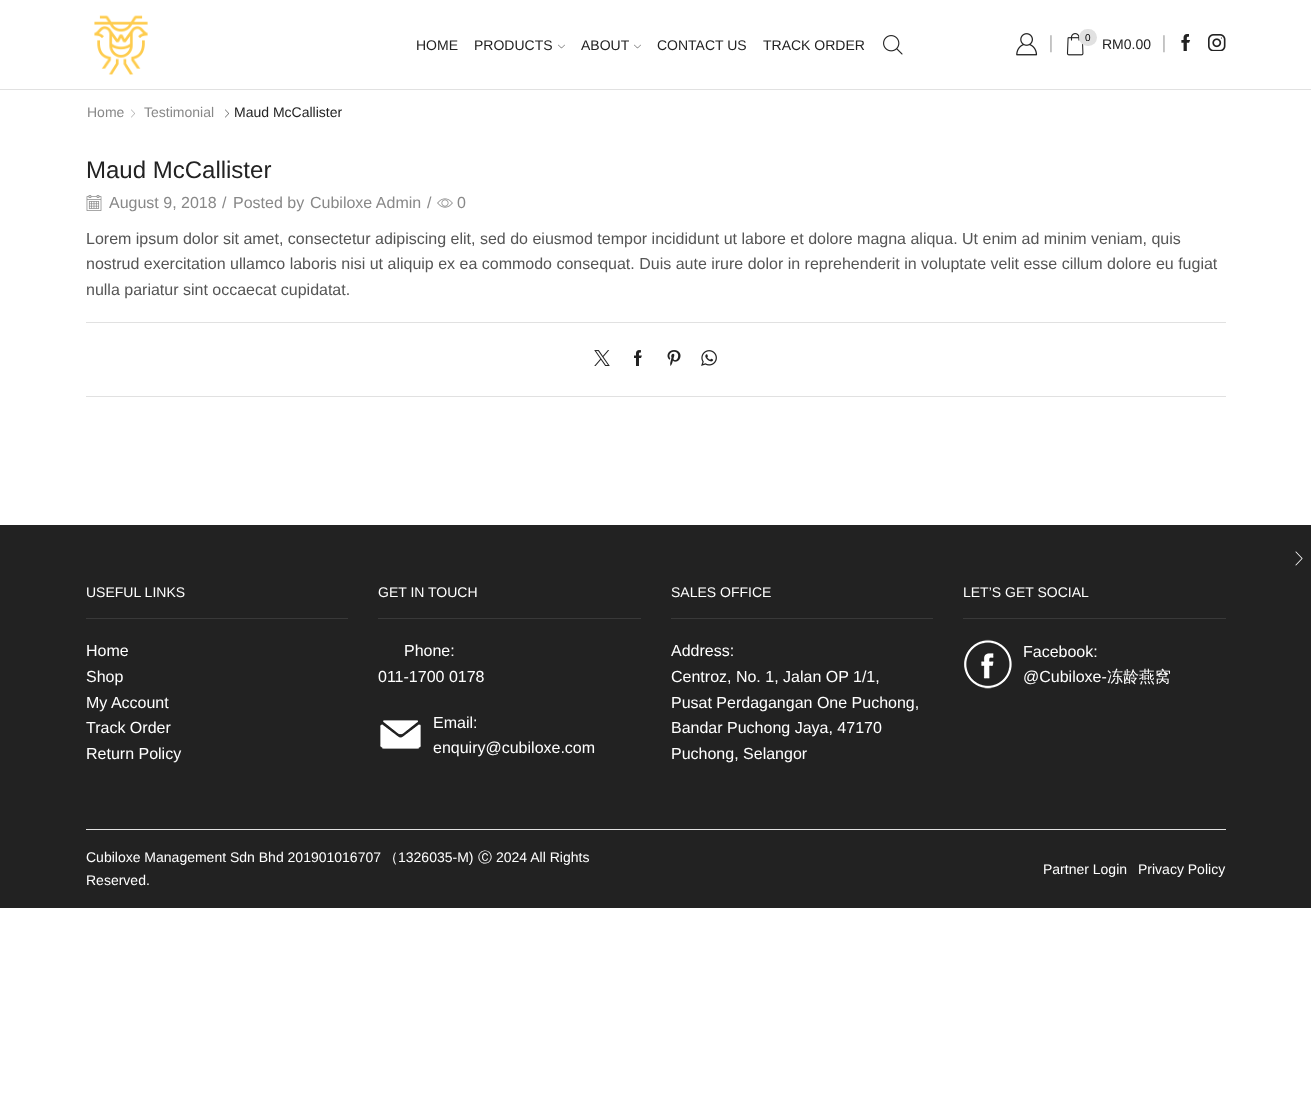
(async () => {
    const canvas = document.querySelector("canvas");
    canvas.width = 1311;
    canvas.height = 1118;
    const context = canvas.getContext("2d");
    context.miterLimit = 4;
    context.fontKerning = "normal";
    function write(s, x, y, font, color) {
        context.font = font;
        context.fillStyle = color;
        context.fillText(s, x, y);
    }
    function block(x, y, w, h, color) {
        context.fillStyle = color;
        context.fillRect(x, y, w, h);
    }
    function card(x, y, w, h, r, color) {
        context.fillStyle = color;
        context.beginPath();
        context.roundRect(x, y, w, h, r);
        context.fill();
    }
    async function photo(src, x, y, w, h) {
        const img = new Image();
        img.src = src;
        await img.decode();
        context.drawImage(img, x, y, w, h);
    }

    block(0, 0, 1311, 1118, "rgb(255, 255, 255)");
    block(0, 89, 1311, 1, "rgb(225, 225, 225)");
    await photo("media/1.png", 94, 15, 54, 60);
    write("HOME", 416, 50, "14px Liberation Sans", "rgb(34, 34, 34)");
    write("PRODUCTS", 474, 50, "14px Liberation Sans", "rgb(34, 34, 34)");
    await photo("media/2.png", 558, 44, 7, 5);
    write("ABOUT", 581, 50, "14px Liberation Sans", "rgb(34, 34, 34)");
    await photo("media/2.png", 634, 44, 7, 5);
    write("CONTACT US", 657, 50, "14px Liberation Sans", "rgb(34, 34, 34)");
    write("TRACK ORDER", 763, 50, "14px Liberation Sans", "rgb(34, 34, 34)");
    await photo("media/3.png", 883, 35, 20, 20);
    await photo("media/4.png", 1016, 33, 22, 23);
    write("│", 1046, 48, "14px Liberation Serif", "rgb(145, 145, 145)");
    await photo("media/5.png", 1066, 33, 18, 23);
    card(1079, 29, 18, 17, 8.5, "rgb(225, 225, 225)");
    write("0", 1085, 41, "10px Liberation Sans", "rgb(0, 0, 0)");
    write("RM0.00", 1102, 49, "14px Liberation Sans", "rgb(34, 34, 34)");
    write("│", 1159, 48, "14px Liberation Serif", "rgb(145, 145, 145)");
    await photo("media/6.png", 1181, 34, 10, 17);
    await photo("media/7.png", 1208, 34, 18, 17);
    write("Home", 87, 117, "14px Liberation Sans", "rgb(136, 136, 136)");
    await photo("media/8.png", 131, 109, 4, 9);
    write("Testimonial", 144, 117, "14px Liberation Sans", "rgb(136, 136, 136)");
    await photo("media/9.png", 225, 109, 4, 9);
    write("Maud McCallister", 234, 117, "14px Liberation Sans", "rgb(34, 34, 34)");
    write("Maud McCallister", 86, 178, "24px Liberation Sans", "rgb(34, 34, 34)");
    await photo("media/10.png", 86, 195, 16, 16);
    write("August 9, 2018", 109, 208, "16px Liberation Sans", "rgb(136, 136, 136)");
    write("/", 222, 208, "16px Liberation Sans", "rgb(136, 136, 136)");
    write("Posted by", 233, 208, "16px Liberation Sans", "rgb(136, 136, 136)");
    write("Cubiloxe Admin", 310, 208, "16px Liberation Sans", "rgb(136, 136, 136)");
    write("/", 427, 208, "16px Liberation Sans", "rgb(136, 136, 136)");
    await photo("media/11.png", 437, 198, 16, 10);
    write("0", 457, 208, "16px Liberation Sans", "rgb(136, 136, 136)");
    write("Lorem ipsum dolor sit amet, consectetur adipiscing elit, sed do eiusmod tempor incididunt ut labore et dolore magna aliqua. Ut enim ad minim veniam, quis", 86, 244, "16px Liberation Sans", "rgb(85, 85, 85)");
    write("nostrud exercitation ullamco laboris nisi ut aliquip ex ea commodo consequat. Duis aute irure dolor in reprehenderit in voluptate velit esse cillum dolore eu fugiat", 86, 269, "16px Liberation Sans", "rgb(85, 85, 85)");
    write("nulla pariatur sint occaecat cupidatat.", 86, 295, "16px Liberation Sans", "rgb(85, 85, 85)");
    block(86, 322, 1140, 1, "rgb(225, 225, 225)");
    block(86, 396, 1140, 1, "rgb(225, 225, 225)");
    await photo("media/12.png", 594, 350, 16, 16);
    await photo("media/13.png", 634, 350, 8, 16);
    await photo("media/14.png", 667, 350, 14, 16);
    await photo("media/15.png", 701, 350, 16, 16);
    block(0, 525, 1311, 383, "rgb(34, 34, 34)");
    await photo("media/16.png", 1295, 551, 8, 15);
    block(86, 618, 262, 1, "rgb(57, 57, 57)");
    write("USEFUL LINKS", 86, 597, "14px Liberation Sans", "rgb(255, 255, 255)");
    write("Home", 86, 656, "16px Liberation Sans", "rgb(255, 255, 255)");
    write("Shop", 86, 682, "16px Liberation Sans", "rgb(255, 255, 255)");
    write("My Account", 86, 708, "16px Liberation Sans", "rgb(255, 255, 255)");
    write("Track Order", 86, 733, "16px Liberation Sans", "rgb(255, 255, 255)");
    write("Return Policy", 86, 759, "16px Liberation Sans", "rgb(255, 255, 255)");
    block(378, 618, 263, 1, "rgb(57, 57, 57)");
    write("GET IN TOUCH", 378, 597, "14px Liberation Sans", "rgb(255, 255, 255)");
    write("Phone:", 404, 656, "16px Liberation Sans", "rgb(255, 255, 255)");
    write("011-1700 0178", 378, 682, "16px Liberation Sans", "rgb(255, 255, 255)");
    await photo("media/17.png", 380, 720, 41, 29);
    write("Email:", 433, 728, "16px Liberation Sans", "rgb(255, 255, 255)");
    write("enquiry@cubiloxe.com", 433, 753, "16px Liberation Sans", "rgb(255, 255, 255)");
    block(671, 618, 262, 1, "rgb(57, 57, 57)");
    write("SALES OFFICE", 671, 597, "14px Liberation Sans", "rgb(255, 255, 255)");
    write("Address:", 671, 656, "16px Liberation Sans", "rgb(255, 255, 255)");
    write("Centroz, No. 1, Jalan OP 1/1,", 671, 682, "16px Liberation Sans", "rgb(255, 255, 255)");
    write("Pusat Perdagangan One Puchong,", 671, 708, "16px Liberation Sans", "rgb(255, 255, 255)");
    write("Bandar Puchong Jaya, 47170", 671, 733, "16px Liberation Sans", "rgb(255, 255, 255)");
    write("Puchong, Selangor", 671, 759, "16px Liberation Sans", "rgb(255, 255, 255)");
    block(963, 618, 263, 1, "rgb(57, 57, 57)");
    write("LET’S GET SOCIAL", 963, 597, "14px Liberation Sans", "rgb(255, 255, 255)");
    await photo("media/18.png", 964, 639, 48, 50);
    write("Facebook:", 1023, 657, "16px Liberation Sans", "rgb(255, 255, 255)");
    write("@Cubiloxe-", 1023, 682, "16px Liberation Sans", "rgb(255, 255, 255)");
    write("冻龄燕窝", 1107, 682, "500 16px WenQuanYi Zen Hei", "rgb(255, 255, 255)");
    block(86, 829, 1140, 1, "rgb(225, 225, 225)");
    write("Cubiloxe Management Sdn Bhd 201901016707", 86, 862, "14px Liberation Sans", "rgb(255, 255, 255)");
    write("（", 384, 862, "500 14px WenQuanYi Zen Hei", "rgb(255, 255, 255)");
    write("1326035-M)", 398, 862, "14px Liberation Sans", "rgb(255, 255, 255)");
    write("Ⓒ", 478, 862, "500 14px WenQuanYi Zen Hei", "rgb(255, 255, 255)");
    write("2024 All Rights", 496, 862, "14px Liberation Sans", "rgb(255, 255, 255)");
    write("Reserved.", 86, 885, "14px Liberation Sans", "rgb(255, 255, 255)");
    write("Partner Login", 1043, 874, "14px Liberation Sans", "rgb(255, 255, 255)");
    write("Privacy Policy", 1138, 874, "14px Liberation Sans", "rgb(255, 255, 255)");
})();
